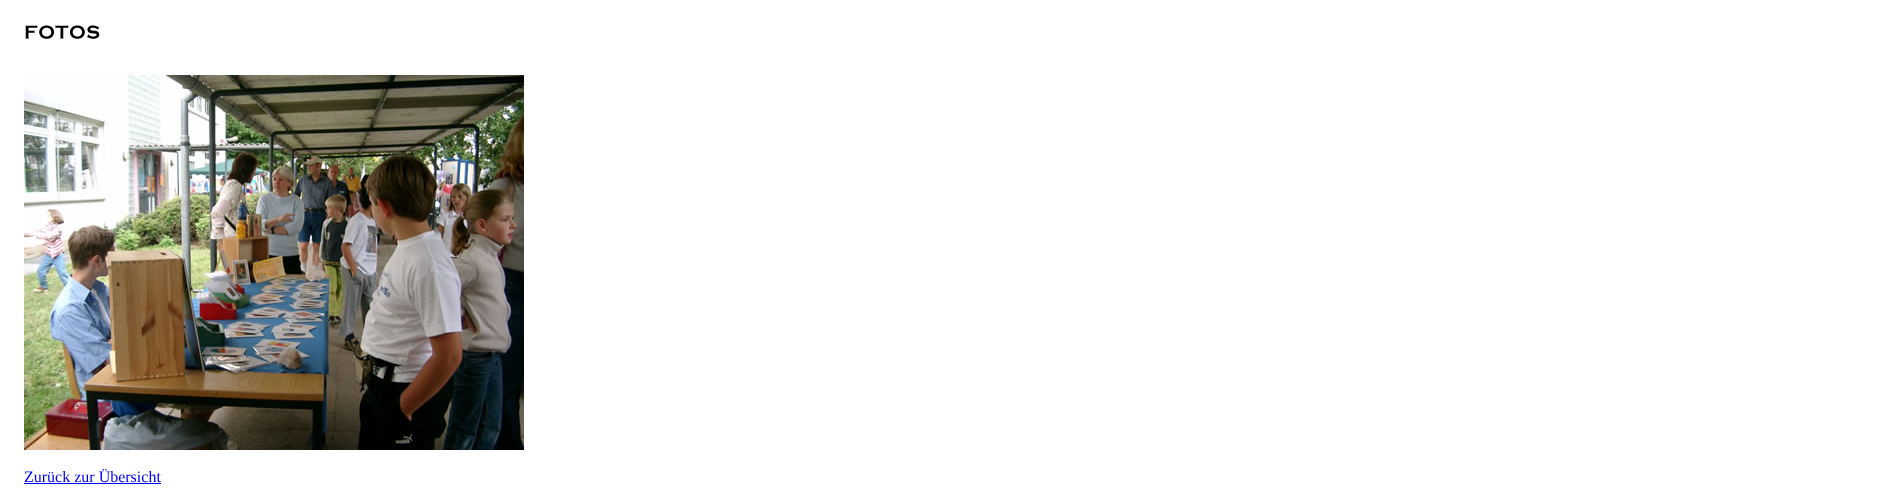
(async () => {
    const canvas = document.querySelector("canvas");
    canvas.width = 1891;
    canvas.height = 489;
    const context = canvas.getContext("2d");
    context.miterLimit = 4;
    context.fontKerning = "normal";
    function write(s, x, y, font, color) {
        context.font = font;
        context.fillStyle = color;
        context.fillText(s, x, y);
    }
    function block(x, y, w, h, color) {
        context.fillStyle = color;
        context.fillRect(x, y, w, h);
    }
    async function photo(src, x, y, w, h) {
        const img = new Image();
        img.src = src;
        await img.decode();
        context.drawImage(img, x, y, w, h);
    }

    block(0, 0, 1891, 489, "rgb(255, 255, 255)");
    await photo("media/1.png", 25, 25, 75, 14);
    await photo("media/2.png", 24, 75, 500, 375);
    write("Zurück zur Übersicht", 24, 482, "16px Liberation Serif", "rgb(0, 0, 238)");
    block(24, 483, 137, 1, "rgb(0, 0, 238)");
})();
